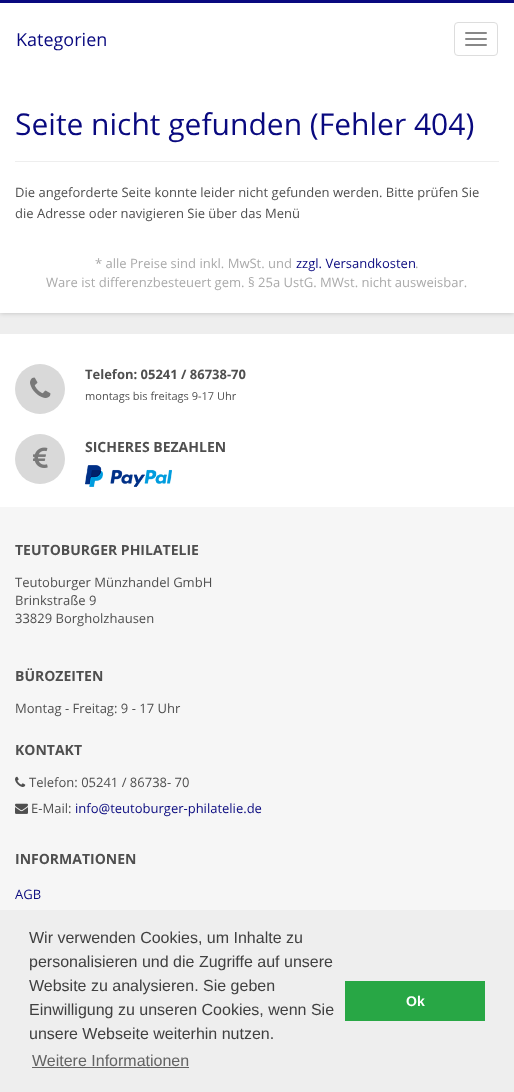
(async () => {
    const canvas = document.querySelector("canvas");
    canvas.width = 514;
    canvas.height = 1092;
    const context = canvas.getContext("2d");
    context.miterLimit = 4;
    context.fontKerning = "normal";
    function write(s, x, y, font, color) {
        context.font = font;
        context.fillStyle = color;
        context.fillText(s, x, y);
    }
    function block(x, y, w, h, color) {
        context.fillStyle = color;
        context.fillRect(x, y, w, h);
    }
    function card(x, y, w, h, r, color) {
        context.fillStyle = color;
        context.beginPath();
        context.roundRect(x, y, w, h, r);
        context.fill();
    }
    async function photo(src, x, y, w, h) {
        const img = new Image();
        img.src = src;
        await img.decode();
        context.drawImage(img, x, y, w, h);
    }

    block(0, 0, 514, 1092, "rgb(238, 238, 238)");
    context.fillStyle = "rgba(0, 0, 0, 0.2)";
    context.filter = "blur(2.5px)";
    context.beginPath();
    context.rect(0, -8, 514, 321);
    context.fill();
    context.filter = "none";
    block(0, 3, 514, 310, "rgb(255, 255, 255)");
    block(0, 0, 514, 3, "rgb(9, 9, 127)");
    write("Kategorien", 16, 46, "18px Open Sans", "rgb(9, 9, 127)");
    context.beginPath();
    context.roundRect(454.5, 22.5, 43, 33, 3.5);
    context.strokeStyle = "rgb(221, 221, 221)";
    context.stroke();
    card(465, 32, 22, 2, 1, "rgb(136, 136, 136)");
    card(465, 38, 22, 2, 1, "rgb(136, 136, 136)");
    card(465, 44, 22, 2, 1, "rgb(136, 136, 136)");
    block(15, 161, 484, 1, "rgb(238, 238, 238)");
    write("Seite nicht gefunden (Fehler 404)", 15, 135, "30px Open Sans", "rgb(9, 9, 127)");
    write("Die angeforderte Seite konnte leider nicht gefunden werden. Bitte prüfen Sie", 15, 197, "13px Open Sans", "rgb(79, 79, 79)");
    write("die Adresse oder navigieren Sie über das Menü", 15, 218, "13px Open Sans", "rgb(79, 79, 79)");
    write("* alle Preise sind inkl. MwSt. und", 95, 268, "13px Open Sans", "rgb(170, 170, 170)");
    write("zzgl. Versandkosten", 296, 268, "13px Open Sans", "rgb(9, 9, 127)");
    write(".", 415, 268, "13px Open Sans", "rgb(170, 170, 170)");
    write("Ware ist differenzbesteuert gem. § 25a UstG. MWst. nicht ausweisbar.", 46, 287, "13px Open Sans", "rgb(170, 170, 170)");
    block(0, 334, 514, 173, "rgb(255, 255, 255)");
    context.fillStyle = "rgb(217, 217, 217)";
    context.beginPath();
    context.arc(40, 389, 25, 0, Math.PI * 2);
    context.fill();
    await photo("media/1.png", 30, 377, 21, 21);
    write("Telefon: 05241 / 86738-70", 85, 379, "bold 13px Open Sans", "rgb(79, 79, 79)");
    write("montags bis freitags 9-17 Uhr", 85, 400, "11px Open Sans", "rgb(79, 79, 79)");
    context.fillStyle = "rgb(217, 217, 217)";
    context.beginPath();
    context.arc(40, 459, 25, 0, Math.PI * 2);
    context.fill();
    await photo("media/2.png", 33, 447, 15, 21);
    write("SICHERES BEZAHLEN", 85, 452, "bold 14px Open Sans", "rgb(79, 79, 79)");
    await photo("media/3.png", 85, 465, 87, 22);
    block(0, 507, 514, 403, "rgb(246, 246, 246)");
    write("TEUTOBURGER PHILATELIE", 15, 555, "bold 14px Open Sans", "rgb(79, 79, 79)");
    write("Teutoburger Münzhandel GmbH", 15, 587, "13px Open Sans", "rgb(79, 79, 79)");
    write("Brinkstraße 9", 15, 605, "13px Open Sans", "rgb(79, 79, 79)");
    write("33829 Borgholzhausen", 15, 623, "13px Open Sans", "rgb(79, 79, 79)");
    write("BÜROZEITEN", 15, 681, "bold 14px Open Sans", "rgb(79, 79, 79)");
    write("Montag - Freitag: 9 - 17 Uhr", 15, 713, "13px Open Sans", "rgb(79, 79, 79)");
    write("KONTAKT", 15, 755, "bold 14px Open Sans", "rgb(79, 79, 79)");
    await photo("media/4.png", 15, 776, 11, 11);
    write("Telefon: 05241 / 86738- 70", 29, 787, "13px Open Sans", "rgb(79, 79, 79)");
    await photo("media/5.png", 15, 803, 13, 11);
    write("E-Mail:", 31, 813, "13px Open Sans", "rgb(79, 79, 79)");
    write("info@teutoburger-philatelie.de", 75, 813, "13px Open Sans", "rgb(9, 9, 127)");
    write("INFORMATIONEN", 15, 864, "bold 14px Open Sans", "rgb(79, 79, 79)");
    write("AGB", 15, 899, "13px Open Sans", "rgb(9, 9, 127)");
    write("Wir verwenden Cookies, um Inhalte zu", 29, 943, "16px Liberation Sans", "rgb(64, 64, 64)");
    write("personalisieren und die Zugriffe auf unsere", 29, 967, "16px Liberation Sans", "rgb(64, 64, 64)");
    write("Website zu analysieren. Sie geben", 29, 991, "16px Liberation Sans", "rgb(64, 64, 64)");
    write("Einwilligung zu unseren Cookies, wenn Sie", 29, 1015, "16px Liberation Sans", "rgb(64, 64, 64)");
    write("unsere Webseite weiterhin nutzen.", 29, 1039, "16px Liberation Sans", "rgb(64, 64, 64)");
    write("Weitere Informationen", 32, 1066, "16px Liberation Sans", "rgb(99, 99, 99)");
    block(32, 1067, 157, 1, "rgb(99, 99, 99)");
    block(345, 981, 140, 40, "rgb(40, 167, 69)");
    write("Ok", 406, 1006, "bold 14px Liberation Sans", "rgb(255, 255, 255)");
})();
